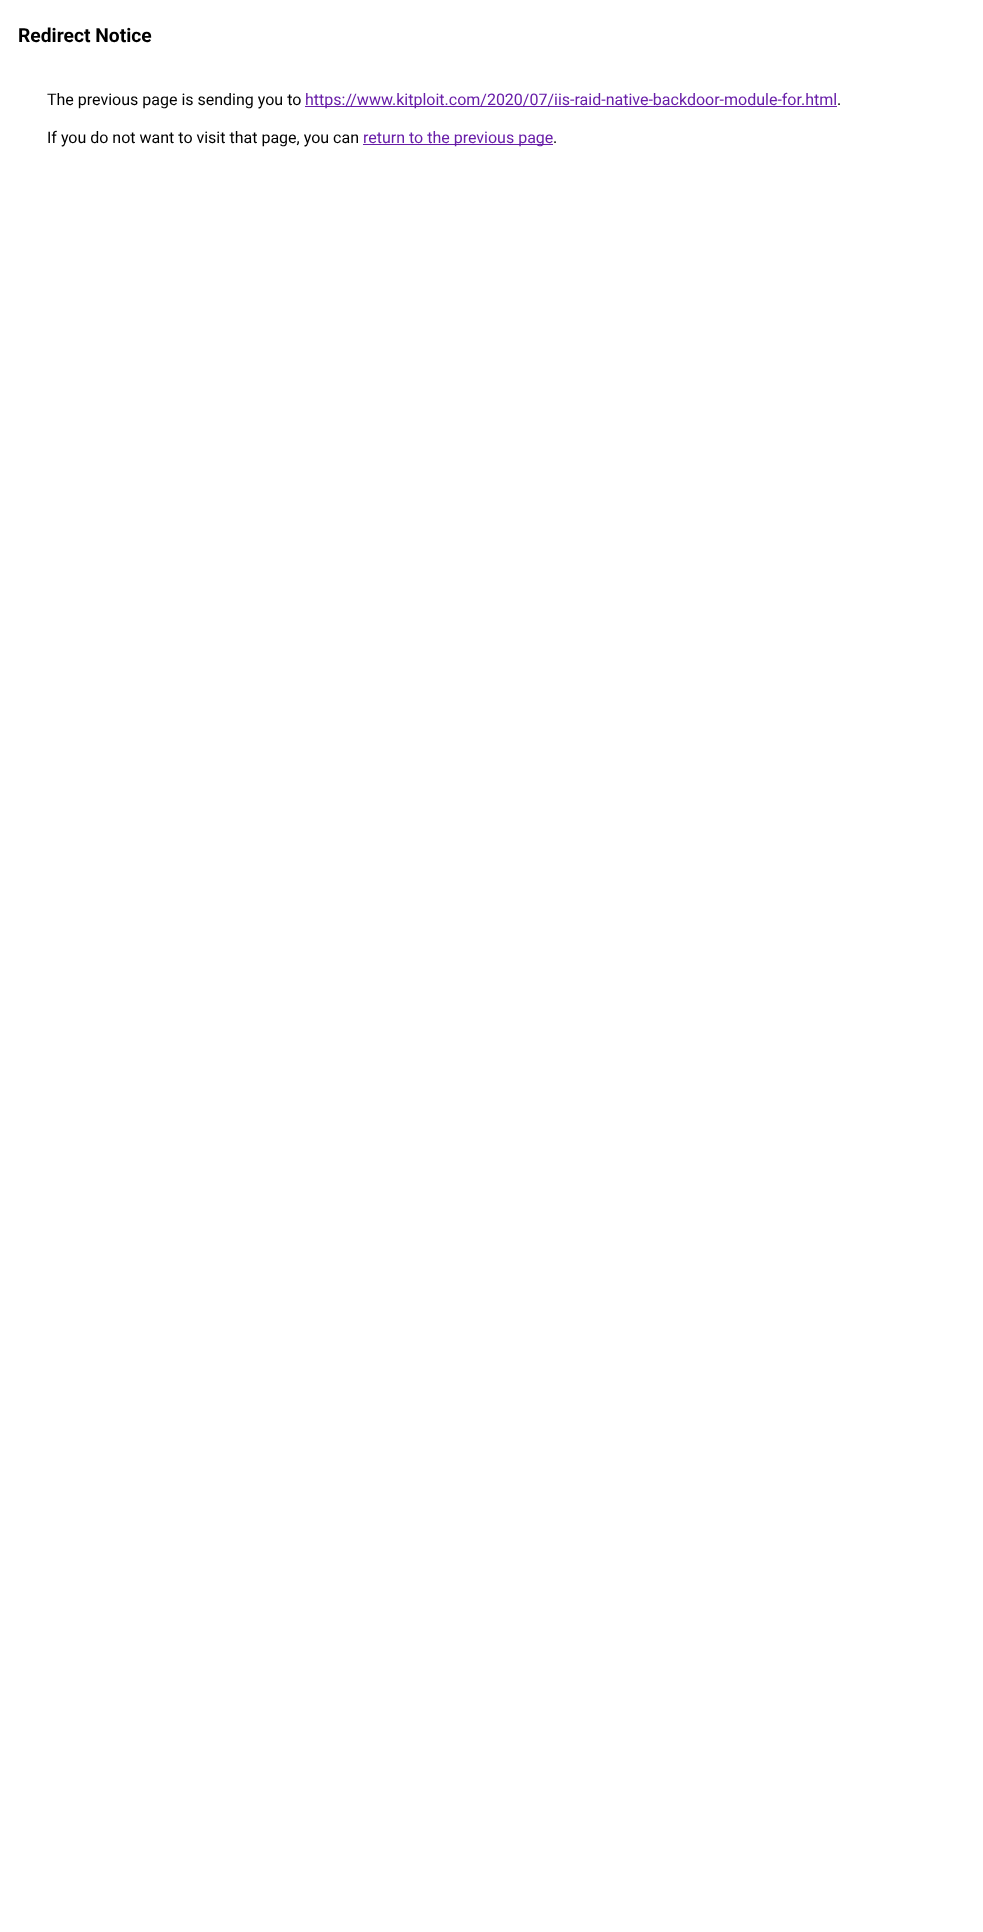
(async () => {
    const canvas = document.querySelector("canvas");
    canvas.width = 983;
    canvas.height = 1932;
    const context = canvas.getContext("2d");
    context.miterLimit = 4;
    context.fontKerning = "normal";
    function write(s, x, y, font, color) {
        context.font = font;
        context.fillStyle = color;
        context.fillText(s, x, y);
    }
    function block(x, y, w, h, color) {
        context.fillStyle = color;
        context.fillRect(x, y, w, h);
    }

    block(0, 0, 983, 1932, "rgb(255, 255, 255)");
    write("Redirect Notice", 18, 42, "bold 19.25px Roboto", "rgb(0, 0, 0)");
    write("The previous page is sending you to", 47, 105, "16px Roboto", "rgb(0, 0, 0)");
    block(305, 106, 532, 1, "rgb(104, 29, 168)");
    write("https://www.kitploit.com/2020/07/iis-raid-native-backdoor-module-for.html", 305, 105, "16px Roboto", "rgb(104, 29, 168)");
    write(".", 837, 105, "16px Roboto", "rgb(0, 0, 0)");
    write("If you do not want to visit that page, you can", 47, 143, "16px Roboto", "rgb(0, 0, 0)");
    block(363, 144, 190, 1, "rgb(104, 29, 168)");
    write("return to the previous page", 363, 143, "16px Roboto", "rgb(104, 29, 168)");
    write(".", 553, 143, "16px Roboto", "rgb(0, 0, 0)");
})();
